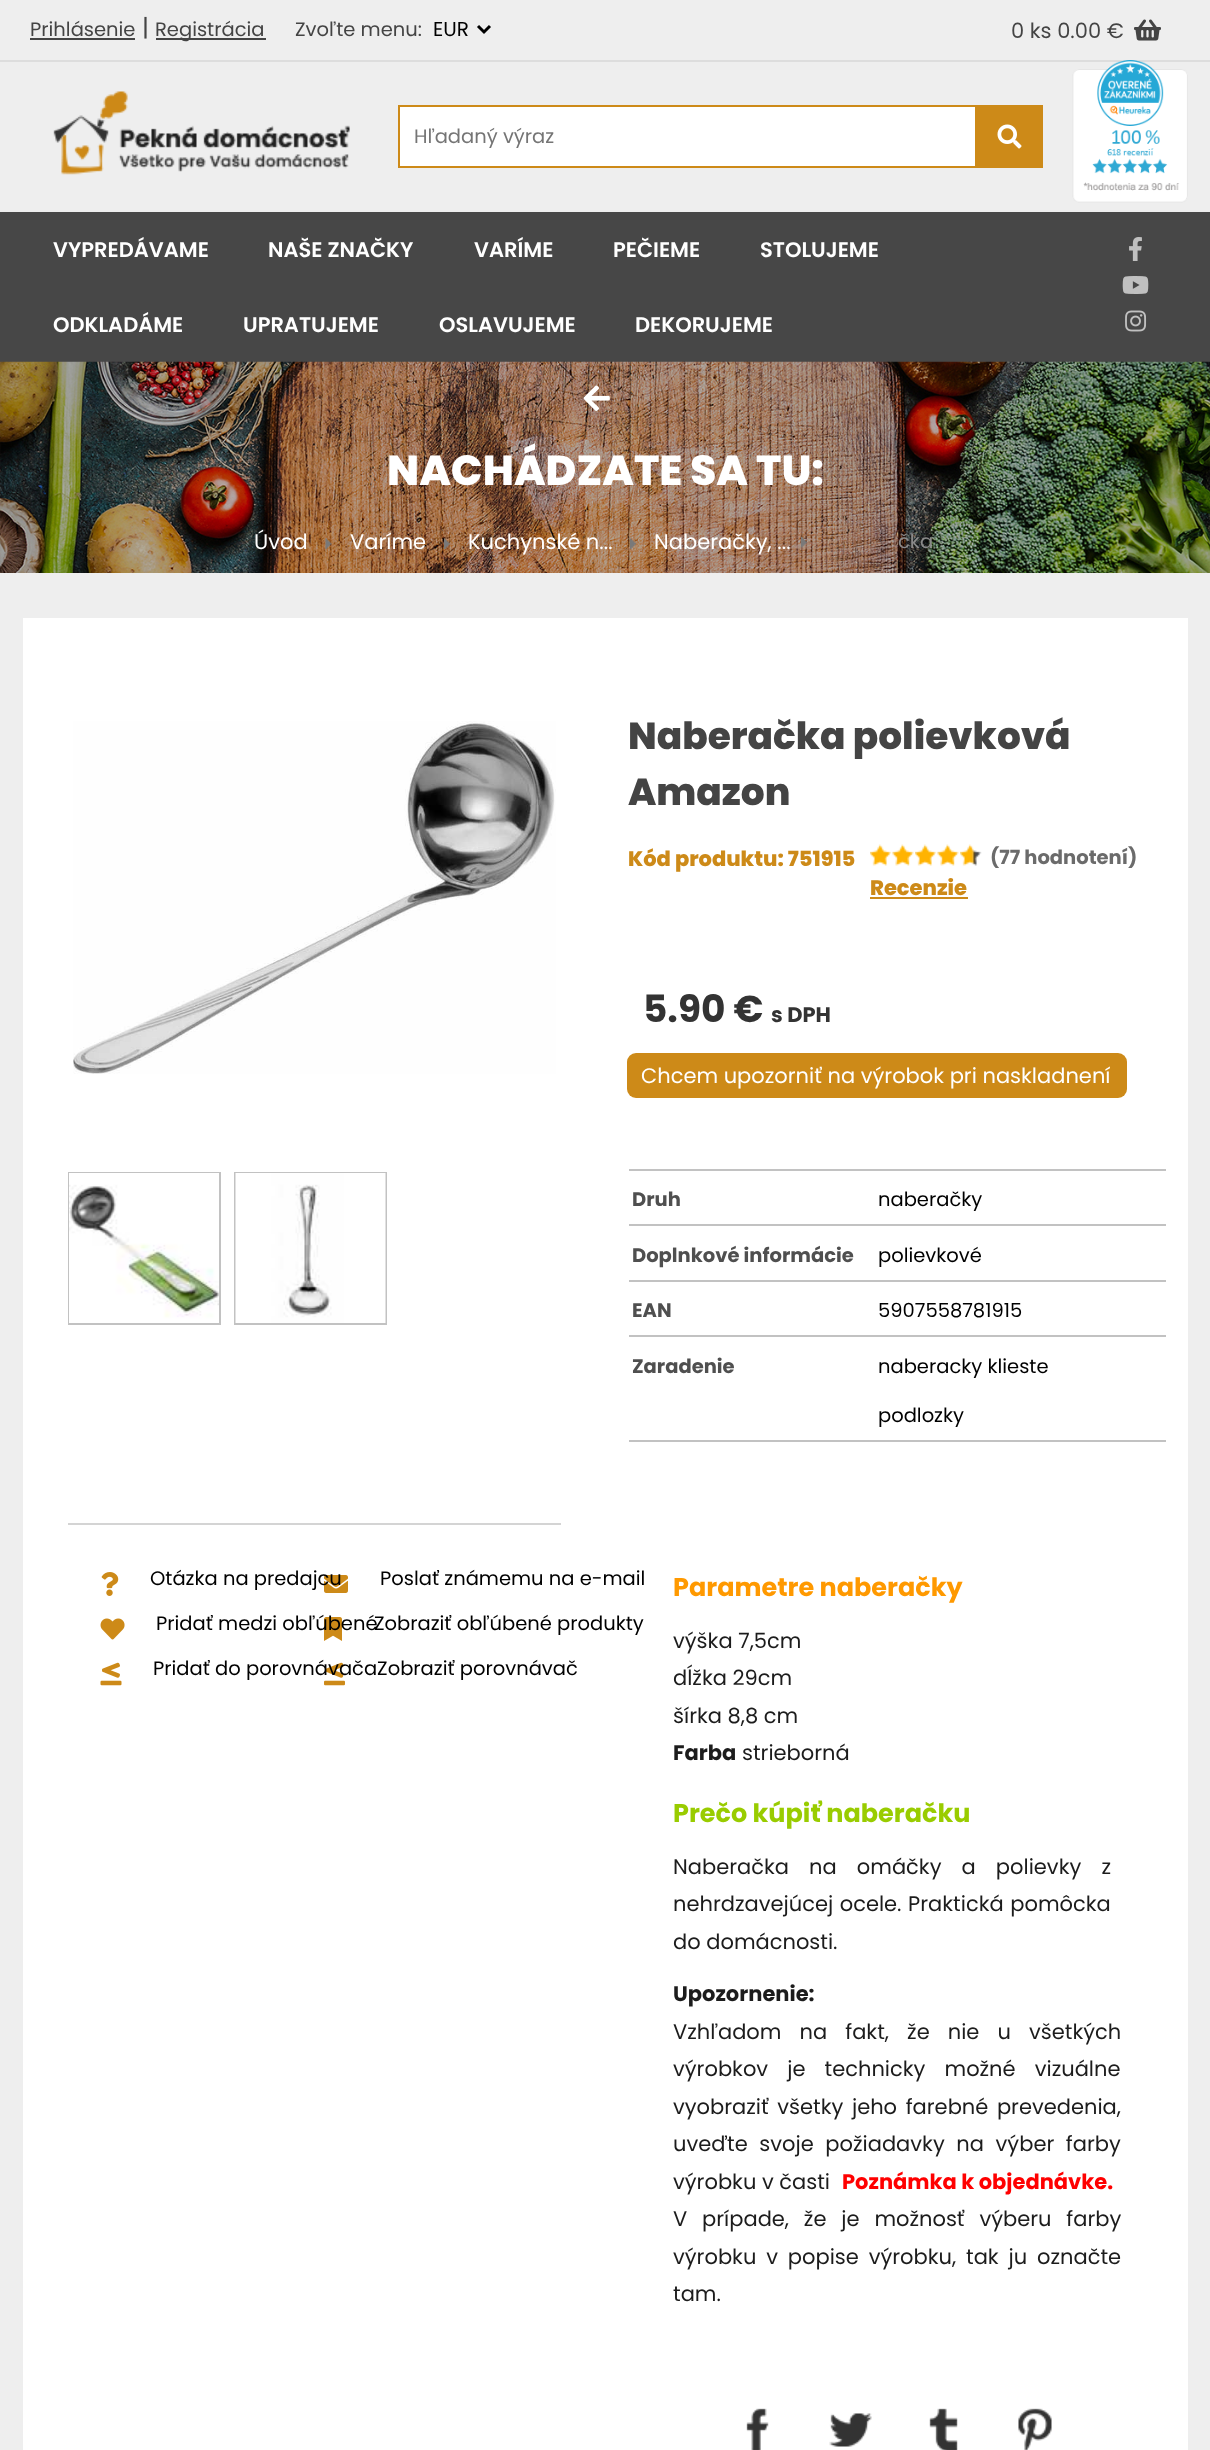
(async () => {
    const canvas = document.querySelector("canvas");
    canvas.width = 1210;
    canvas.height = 2450;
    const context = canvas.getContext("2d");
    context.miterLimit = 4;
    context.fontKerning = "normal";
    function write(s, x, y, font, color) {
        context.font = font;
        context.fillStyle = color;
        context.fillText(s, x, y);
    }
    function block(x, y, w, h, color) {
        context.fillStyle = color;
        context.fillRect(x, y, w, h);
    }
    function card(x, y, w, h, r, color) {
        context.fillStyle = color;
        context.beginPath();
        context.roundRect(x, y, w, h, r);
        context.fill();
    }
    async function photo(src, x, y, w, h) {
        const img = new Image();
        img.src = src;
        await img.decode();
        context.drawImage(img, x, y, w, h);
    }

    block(0, 0, 1210, 2450, "rgb(238, 238, 238)");
    block(0, 60, 1210, 2, "rgb(221, 221, 221)");
    write("Prihlásenie", 30, 36, "19.5px Poppins", "rgb(68, 68, 68)");
    block(30, 38, 105, 2, "rgb(68, 68, 68)");
    write("|", 142, 36, "24px Poppins", "rgb(68, 68, 68)");
    block(156, 38, 110, 2, "rgb(68, 68, 68)");
    write("Registrácia", 155, 36, "19.5px Poppins", "rgb(68, 68, 68)");
    write("Zvoľte menu:", 295, 36, "19.5px Poppins", "rgb(68, 68, 68)");
    context.beginPath();
    context.moveTo(478, 26);
    context.lineTo(484, 32);
    context.lineTo(490, 26);
    context.strokeStyle = "rgb(0, 0, 0)";
    context.lineWidth = 3;
    context.stroke();
    write("EUR", 433, 36, "20px Poppins", "rgb(0, 0, 0)");
    write("0 ks 0.00 €", 1011, 38, "21px Poppins", "rgb(68, 68, 68)");
    await photo("media/1.png", 1134, 19, 27, 22);
    await photo("media/2.png", 53, 91, 297, 84);
    block(400, 107, 575, 59, "rgb(255, 255, 255)");
    context.strokeStyle = "rgb(205, 138, 24)";
    context.lineWidth = 2;
    context.strokeRect(399, 106, 643, 61);
    write("Hľadaný výraz", 414, 143, "19.5px Poppins", "rgb(117, 117, 117)");
    block(975, 107, 66, 59, "rgb(205, 138, 24)");
    await photo("media/3.png", 997, 124, 25, 25);
    await photo("media/4.png", 1072, 60, 116, 143);
    block(0, 212, 1210, 150, "rgb(71, 71, 71)");
    write("VYPREDÁVAME", 53, 257, "600 21px Poppins", "rgb(255, 255, 255)");
    write("NAŠE ZNAČKY", 268, 257, "600 21px Poppins", "rgb(255, 255, 255)");
    write("VARÍME", 474, 257, "600 21px Poppins", "rgb(255, 255, 255)");
    write("PEČIEME", 613, 257, "600 21px Poppins", "rgb(255, 255, 255)");
    write("STOLUJEME", 760, 257, "600 21px Poppins", "rgb(255, 255, 255)");
    write("ODKLADÁME", 53, 332, "600 21px Poppins", "rgb(255, 255, 255)");
    write("UPRATUJEME", 243, 332, "600 21px Poppins", "rgb(255, 255, 255)");
    write("OSLAVUJEME", 439, 332, "600 21px Poppins", "rgb(255, 255, 255)");
    write("DEKORUJEME", 635, 332, "600 21px Poppins", "rgb(255, 255, 255)");
    await photo("media/5.png", 1129, 237, 13, 24);
    await photo("media/6.png", 1122, 276, 27, 18);
    await photo("media/7.png", 1125, 310, 22, 22);
    await photo("media/8.png", 0, 361, 1210, 212);
    await photo("media/9.png", 583, 385, 27, 26);
    write("NACHÁDZATE SA TU:", 387, 485, "800 42px Poppins", "rgb(255, 255, 255)");
    write("Úvod", 254, 549, "21px Poppins", "rgb(255, 255, 255)");
    await photo("media/10.png", 325, 538, 7, 11);
    write("Varíme", 350, 549, "21px Poppins", "rgb(255, 255, 255)");
    await photo("media/11.png", 444, 538, 6, 11);
    write("Kuchynské n...", 468, 549, "21px Poppins", "rgb(255, 255, 255)");
    await photo("media/12.png", 630, 538, 6, 11);
    write("Naberačky, ...", 654, 549, "21px Poppins", "rgb(255, 255, 255)");
    await photo("media/13.png", 801, 537, 6, 11);
    write("čka", 898, 548, "19.5px Poppins", "rgb(138, 138, 138)");
    block(23, 618, 1165, 1832, "rgb(255, 255, 255)");
    await photo("media/14.png", 73, 721, 483, 353);
    context.strokeStyle = "rgb(194, 194, 194)";
    context.strokeRect(69, 1173, 151, 151);
    context.strokeRect(235, 1173, 151, 151);
    await photo("media/15.png", 69, 1173, 150, 150);
    await photo("media/16.png", 235, 1173, 151, 150);
    block(68, 1523, 493, 2, "rgb(212, 212, 212)");
    await photo("media/17.png", 101, 1572, 18, 24);
    await photo("media/18.png", 324, 1575, 24, 18);
    write("Otázka na predajcu", 150, 1585, "19.5px Poppins", "rgb(0, 0, 0)");
    write("Poslať známemu na e-mail", 380, 1585, "19.5px Poppins", "rgb(0, 0, 0)");
    await photo("media/19.png", 100, 1618, 25, 22);
    await photo("media/20.png", 324, 1617, 18, 24);
    write("Pridať medzi obľúbené", 156, 1630, "19.5px Poppins", "rgb(0, 0, 0)");
    write("Zobraziť obľúbené produkty", 374, 1630, "19.5px Poppins", "rgb(0, 0, 0)");
    await photo("media/21.png", 100, 1662, 22, 24);
    await photo("media/22.png", 324, 1662, 21, 24);
    write("Pridať do porovnávačaZobraziť porovnávač", 153, 1675, "19.5px Poppins", "rgb(0, 0, 0)");
    write("Naberačka polievková", 628, 749, "800 37.5px Poppins", "rgb(68, 68, 68)");
    write("Amazon", 628, 805, "800 37.5px Poppins", "rgb(68, 68, 68)");
    write("Kód produktu: 751915", 628, 866, "800 21px Poppins", "rgb(205, 138, 24)");
    await photo("media/23.png", 870, 844, 22, 22);
    await photo("media/24.png", 892, 844, 22, 22);
    await photo("media/23.png", 915, 844, 22, 22);
    await photo("media/24.png", 937, 844, 22, 22);
    await photo("media/25.png", 960, 844, 22, 22);
    write("(77 hodnotení)", 990, 864, "bold 19.5px Poppins", "rgb(107, 107, 107)");
    write("Recenzie", 870, 895, "800 21px Poppins", "rgb(205, 138, 24)");
    block(870, 897, 98, 2, "rgb(205, 138, 24)");
    write("5.90 €", 643, 1022, "bold 37.5px Poppins", "rgb(51, 51, 51)");
    write("s DPH", 771, 1022, "bold 21px Poppins", "rgb(51, 51, 51)");
    card(627, 1053, 500, 45, 9, "rgb(205, 138, 24)");
    write("Chcem upozorniť na výrobok pri naskladnení", 641, 1083, "21px Poppins", "rgb(255, 255, 255)");
    block(629, 1169, 537, 2, "rgb(194, 194, 194)");
    block(629, 1224, 537, 2, "rgb(194, 194, 194)");
    write("Druh", 632, 1206, "bold 19.5px Poppins", "rgb(79, 79, 79)");
    write("naberačky", 878, 1206, "19.5px Poppins", "rgb(0, 0, 0)");
    block(629, 1280, 537, 2, "rgb(194, 194, 194)");
    write("Doplnkové informácie", 632, 1262, "bold 19.5px Poppins", "rgb(79, 79, 79)");
    write("polievkové", 878, 1262, "19.5px Poppins", "rgb(0, 0, 0)");
    block(629, 1335, 537, 2, "rgb(194, 194, 194)");
    write("EAN", 632, 1317, "bold 19.5px Poppins", "rgb(79, 79, 79)");
    write("5907558781915", 878, 1317, "19.5px Poppins", "rgb(0, 0, 0)");
    block(629, 1440, 537, 2, "rgb(194, 194, 194)");
    write("Zaradenie", 632, 1373, "bold 19.5px Poppins", "rgb(79, 79, 79)");
    write("naberacky klieste", 878, 1373, "19.5px Poppins", "rgb(0, 0, 0)");
    write("podlozky", 878, 1422, "19.5px Poppins", "rgb(0, 0, 0)");
    write("Parametre naberačky", 673, 1596, "bold 25.5px Poppins", "rgb(255, 153, 0)");
    write("výška 7,5cm", 673, 1648, "21px Poppins", "rgb(28, 28, 28)");
    write("dĺžka 29cm", 673, 1685, "21px Poppins", "rgb(28, 28, 28)");
    write("šírka 8,8 cm", 673, 1723, "21px Poppins", "rgb(28, 28, 28)");
    write("Farba", 673, 1760, "bold 21px Poppins", "rgb(28, 28, 28)");
    write("strieborná", 742, 1760, "21px Poppins", "rgb(28, 28, 28)");
    write("Prečo kúpiť naberačku", 673, 1822, "bold 25.5px Poppins", "rgb(153, 204, 0)");
    context.wordSpacing = "14.5px";
    write("Naberačka na omáčky a polievky z", 673, 1874, "21px Poppins", "rgb(28, 28, 28)");
    context.wordSpacing = "1px";
    write("nehrdzavejúcej ocele. Praktická pomôcka", 673, 1911, "21px Poppins", "rgb(28, 28, 28)");
    context.wordSpacing = "0px";
    write("do domácnosti.", 673, 1949, "21px Poppins", "rgb(28, 28, 28)");
    write("Upozornenie:", 673, 2001, "bold 21px Poppins", "rgb(28, 28, 28)");
    context.wordSpacing = "12.5px";
    write("Vzhľadom na fakt, že nie u všetkých", 673, 2039, "21px Poppins", "rgb(28, 28, 28)");
    context.wordSpacing = "13.5px";
    write("výrobkov je technicky možné vizuálne", 673, 2076, "21px Poppins", "rgb(28, 28, 28)");
    context.wordSpacing = "3px";
    write("vyobraziť všetky jeho farebné prevedenia,", 673, 2114, "21px Poppins", "rgb(28, 28, 28)");
    context.wordSpacing = "6px";
    write("uveďte svoje požiadavky na výber farby", 673, 2151, "21px Poppins", "rgb(28, 28, 28)");
    context.wordSpacing = "0px";
    write("výrobku v časti", 673, 2189, "21px Poppins", "rgb(28, 28, 28)");
    write("Poznámka k objednávke.", 842, 2189, "bold 21px Poppins", "rgb(255, 0, 0)");
    context.wordSpacing = "9.25px";
    write("V prípade, že je možnosť výberu farby", 673, 2226, "21px Poppins", "rgb(28, 28, 28)");
    context.wordSpacing = "4.25px";
    write("výrobku v popise výrobku, tak ju označte", 673, 2264, "21px Poppins", "rgb(28, 28, 28)");
    context.wordSpacing = "0px";
    write("tam.", 673, 2301, "21px Poppins", "rgb(28, 28, 28)");
    await photo("media/26.png", 746, 2408, 23, 42);
    await photo("media/27.png", 829, 2413, 43, 34);
    await photo("media/28.png", 929, 2408, 29, 42);
    await photo("media/29.png", 1018, 2408, 34, 42);
})();
